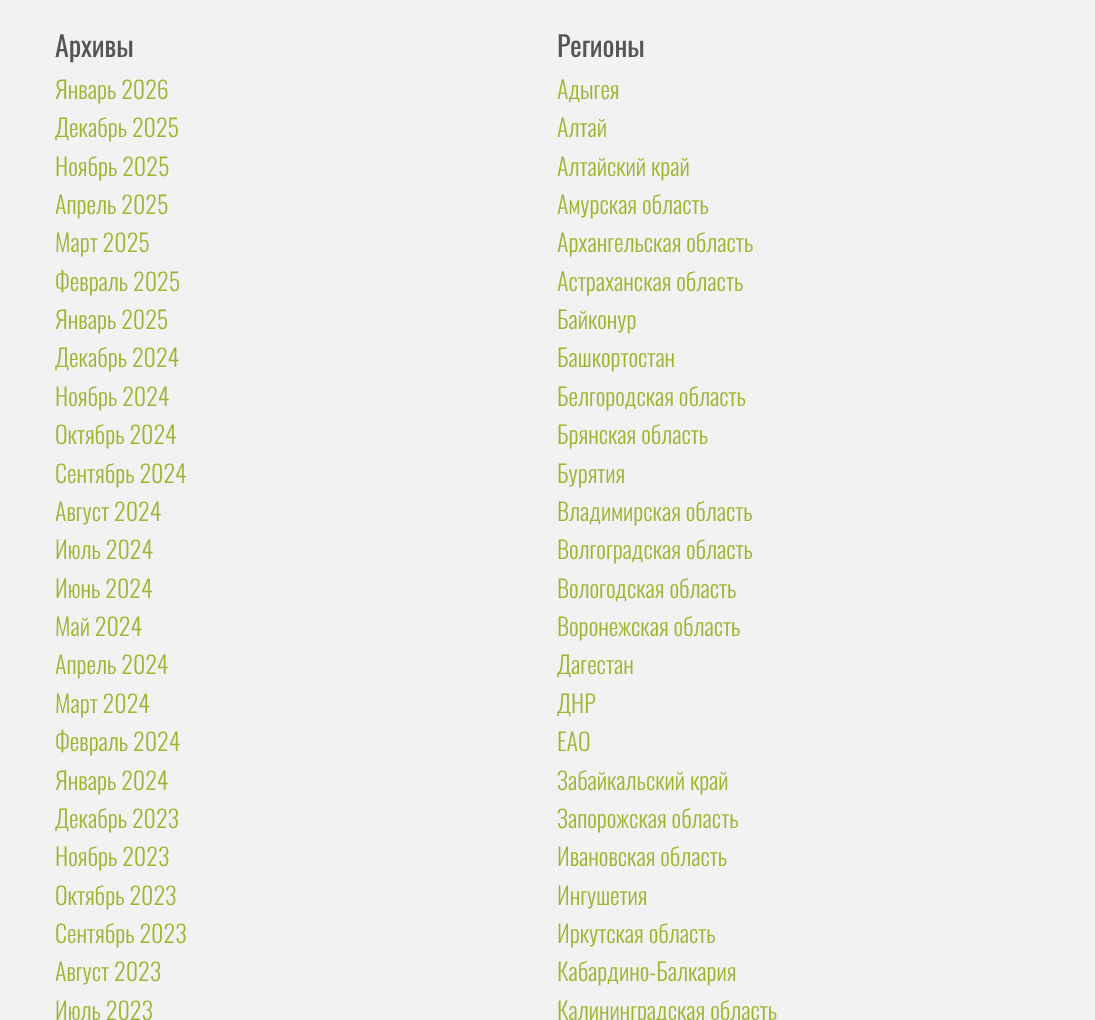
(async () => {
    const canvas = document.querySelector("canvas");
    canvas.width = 1095;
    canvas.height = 1020;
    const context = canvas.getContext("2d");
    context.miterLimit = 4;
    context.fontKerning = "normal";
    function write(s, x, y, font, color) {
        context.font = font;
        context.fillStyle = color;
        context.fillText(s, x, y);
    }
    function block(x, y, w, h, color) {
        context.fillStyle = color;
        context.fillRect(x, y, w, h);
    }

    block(0, 0, 1095, 1020, "rgb(241, 243, 243)");
    write("Архивы", 55, 57, "28px Oswald", "rgb(85, 85, 85)");
    write("Январь 2026", 55, 99, "300 24px Oswald", "rgb(162, 179, 50)");
    write("Декабрь 2025", 55, 137, "300 24px Oswald", "rgb(162, 179, 50)");
    write("Ноябрь 2025", 55, 176, "300 24px Oswald", "rgb(162, 179, 50)");
    write("Апрель 2025", 55, 214, "300 24px Oswald", "rgb(162, 179, 50)");
    write("Март 2025", 55, 252, "300 24px Oswald", "rgb(162, 179, 50)");
    write("Февраль 2025", 55, 291, "300 24px Oswald", "rgb(162, 179, 50)");
    write("Январь 2025", 55, 329, "300 24px Oswald", "rgb(162, 179, 50)");
    write("Декабрь 2024", 55, 367, "300 24px Oswald", "rgb(162, 179, 50)");
    write("Ноябрь 2024", 55, 406, "300 24px Oswald", "rgb(162, 179, 50)");
    write("Октябрь 2024", 55, 444, "300 24px Oswald", "rgb(162, 179, 50)");
    write("Сентябрь 2024", 55, 483, "300 24px Oswald", "rgb(162, 179, 50)");
    write("Август 2024", 55, 521, "300 24px Oswald", "rgb(162, 179, 50)");
    write("Июль 2024", 55, 559, "300 24px Oswald", "rgb(162, 179, 50)");
    write("Июнь 2024", 55, 598, "300 24px Oswald", "rgb(162, 179, 50)");
    write("Май 2024", 55, 636, "300 24px Oswald", "rgb(162, 179, 50)");
    write("Апрель 2024", 55, 674, "300 24px Oswald", "rgb(162, 179, 50)");
    write("Март 2024", 55, 713, "300 24px Oswald", "rgb(162, 179, 50)");
    write("Февраль 2024", 55, 751, "300 24px Oswald", "rgb(162, 179, 50)");
    write("Январь 2024", 55, 790, "300 24px Oswald", "rgb(162, 179, 50)");
    write("Декабрь 2023", 55, 828, "300 24px Oswald", "rgb(162, 179, 50)");
    write("Ноябрь 2023", 55, 866, "300 24px Oswald", "rgb(162, 179, 50)");
    write("Октябрь 2023", 55, 905, "300 24px Oswald", "rgb(162, 179, 50)");
    write("Сентябрь 2023", 55, 943, "300 24px Oswald", "rgb(162, 179, 50)");
    write("Август 2023", 55, 981, "300 24px Oswald", "rgb(162, 179, 50)");
    write("Июль 2023", 55, 1020, "300 24px Oswald", "rgb(162, 179, 50)");
    write("Регионы", 557, 57, "28px Oswald", "rgb(85, 85, 85)");
    write("Адыгея", 557, 99, "300 24px Oswald", "rgb(162, 179, 50)");
    write("Алтай", 557, 137, "300 24px Oswald", "rgb(162, 179, 50)");
    write("Алтайский край", 557, 176, "300 24px Oswald", "rgb(162, 179, 50)");
    write("Амурская область", 557, 214, "300 24px Oswald", "rgb(162, 179, 50)");
    write("Архангельская область", 557, 252, "300 24px Oswald", "rgb(162, 179, 50)");
    write("Астраханская область", 557, 291, "300 24px Oswald", "rgb(162, 179, 50)");
    write("Байконур", 557, 329, "300 24px Oswald", "rgb(162, 179, 50)");
    write("Башкортостан", 557, 367, "300 24px Oswald", "rgb(162, 179, 50)");
    write("Белгородская область", 557, 406, "300 24px Oswald", "rgb(162, 179, 50)");
    write("Брянская область", 557, 444, "300 24px Oswald", "rgb(162, 179, 50)");
    write("Бурятия", 557, 483, "300 24px Oswald", "rgb(162, 179, 50)");
    write("Владимирская область", 557, 521, "300 24px Oswald", "rgb(162, 179, 50)");
    write("Волгоградская область", 557, 559, "300 24px Oswald", "rgb(162, 179, 50)");
    write("Вологодская область", 557, 598, "300 24px Oswald", "rgb(162, 179, 50)");
    write("Воронежская область", 557, 636, "300 24px Oswald", "rgb(162, 179, 50)");
    write("Дагестан", 557, 674, "300 24px Oswald", "rgb(162, 179, 50)");
    write("ДНР", 557, 713, "300 24px Oswald", "rgb(162, 179, 50)");
    write("ЕАО", 557, 751, "300 24px Oswald", "rgb(162, 179, 50)");
    write("Забайкальский край", 557, 790, "300 24px Oswald", "rgb(162, 179, 50)");
    write("Запорожская область", 557, 828, "300 24px Oswald", "rgb(162, 179, 50)");
    write("Ивановская область", 557, 866, "300 24px Oswald", "rgb(162, 179, 50)");
    write("Ингушетия", 557, 905, "300 24px Oswald", "rgb(162, 179, 50)");
    write("Иркутская область", 557, 943, "300 24px Oswald", "rgb(162, 179, 50)");
    write("Кабардино-Балкария", 557, 981, "300 24px Oswald", "rgb(162, 179, 50)");
    write("Калининградская область", 557, 1020, "300 24px Oswald", "rgb(162, 179, 50)");
})();
